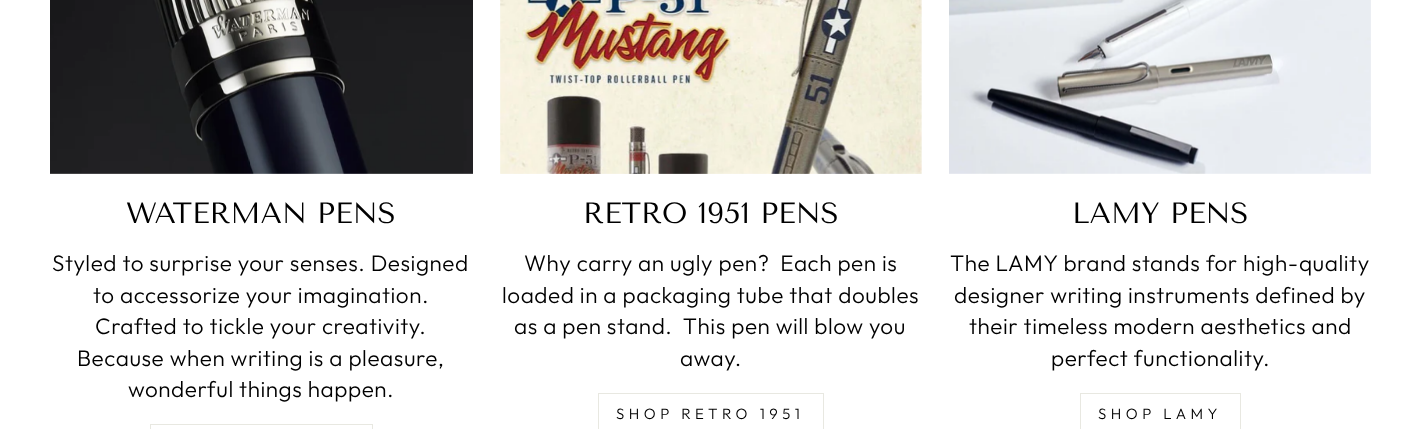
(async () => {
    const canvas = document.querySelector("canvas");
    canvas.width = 1421;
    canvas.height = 429;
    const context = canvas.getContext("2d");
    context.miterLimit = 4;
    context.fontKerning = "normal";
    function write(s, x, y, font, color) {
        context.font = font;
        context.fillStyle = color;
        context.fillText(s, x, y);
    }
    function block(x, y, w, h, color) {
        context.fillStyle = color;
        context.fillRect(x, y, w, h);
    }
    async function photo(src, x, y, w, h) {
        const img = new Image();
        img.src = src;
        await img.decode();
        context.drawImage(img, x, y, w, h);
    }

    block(0, 0, 1421, 429, "rgb(255, 255, 255)");
    await photo("media/1.png", 50, 0, 423, 174);
    write("WATERMAN PENS", 126, 223, "29.25px Tenor Sans", "rgb(0, 0, 0)");
    context.letterSpacing = "0.55px";
    write("Styled to surprise your senses. Designed", 52, 271, "300 22.5px Outfit", "rgb(0, 0, 0)");
    write("to accessorize your imagination.", 93, 303, "300 22.5px Outfit", "rgb(0, 0, 0)");
    write("Crafted to tickle your creativity.", 95, 334, "300 22.5px Outfit", "rgb(0, 0, 0)");
    write("Because when writing is a pleasure,", 77, 366, "300 22.5px Outfit", "rgb(0, 0, 0)");
    write("wonderful things happen.", 128, 397, "300 22.5px Outfit", "rgb(0, 0, 0)");
    context.strokeStyle = "rgb(232, 232, 225)";
    context.strokeRect(150.5, 424.5, 222, 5);
    await photo("media/2.png", 500, 0, 422, 174);
    context.letterSpacing = "0px";
    write("RETRO 1951 PENS", 583, 223, "29.25px Tenor Sans", "rgb(0, 0, 0)");
    context.letterSpacing = "0.55px";
    write("Why carry an ugly pen?  Each pen is", 524, 271, "300 22.5px Outfit", "rgb(0, 0, 0)");
    write("loaded in a packaging tube that doubles", 502, 303, "300 22.5px Outfit", "rgb(0, 0, 0)");
    write("as a pen stand.  This pen will blow you", 514, 334, "300 22.5px Outfit", "rgb(0, 0, 0)");
    write("away.", 680, 366, "300 22.5px Outfit", "rgb(0, 0, 0)");
    context.strokeRect(598.5, 393.5, 225, 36);
    context.letterSpacing = "4.5px";
    write("SHOP RETRO 1951", 616, 419, "300 15px Outfit", "rgb(0, 0, 0)");
    await photo("media/3.png", 949, 0, 422, 174);
    context.letterSpacing = "0px";
    write("LAMY PENS", 1072, 223, "29.25px Tenor Sans", "rgb(0, 0, 0)");
    context.letterSpacing = "0.55px";
    write("The LAMY brand stands for high-quality", 950, 271, "300 22.5px Outfit", "rgb(0, 0, 0)");
    write("designer writing instruments defined by", 954, 303, "300 22.5px Outfit", "rgb(0, 0, 0)");
    write("their timeless modern aesthetics and", 969, 334, "300 22.5px Outfit", "rgb(0, 0, 0)");
    write("perfect functionality.", 1051, 366, "300 22.5px Outfit", "rgb(0, 0, 0)");
    context.strokeRect(1080.5, 393.5, 160, 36);
    context.letterSpacing = "4.5px";
    write("SHOP LAMY", 1098, 419, "300 15px Outfit", "rgb(0, 0, 0)");
})();
